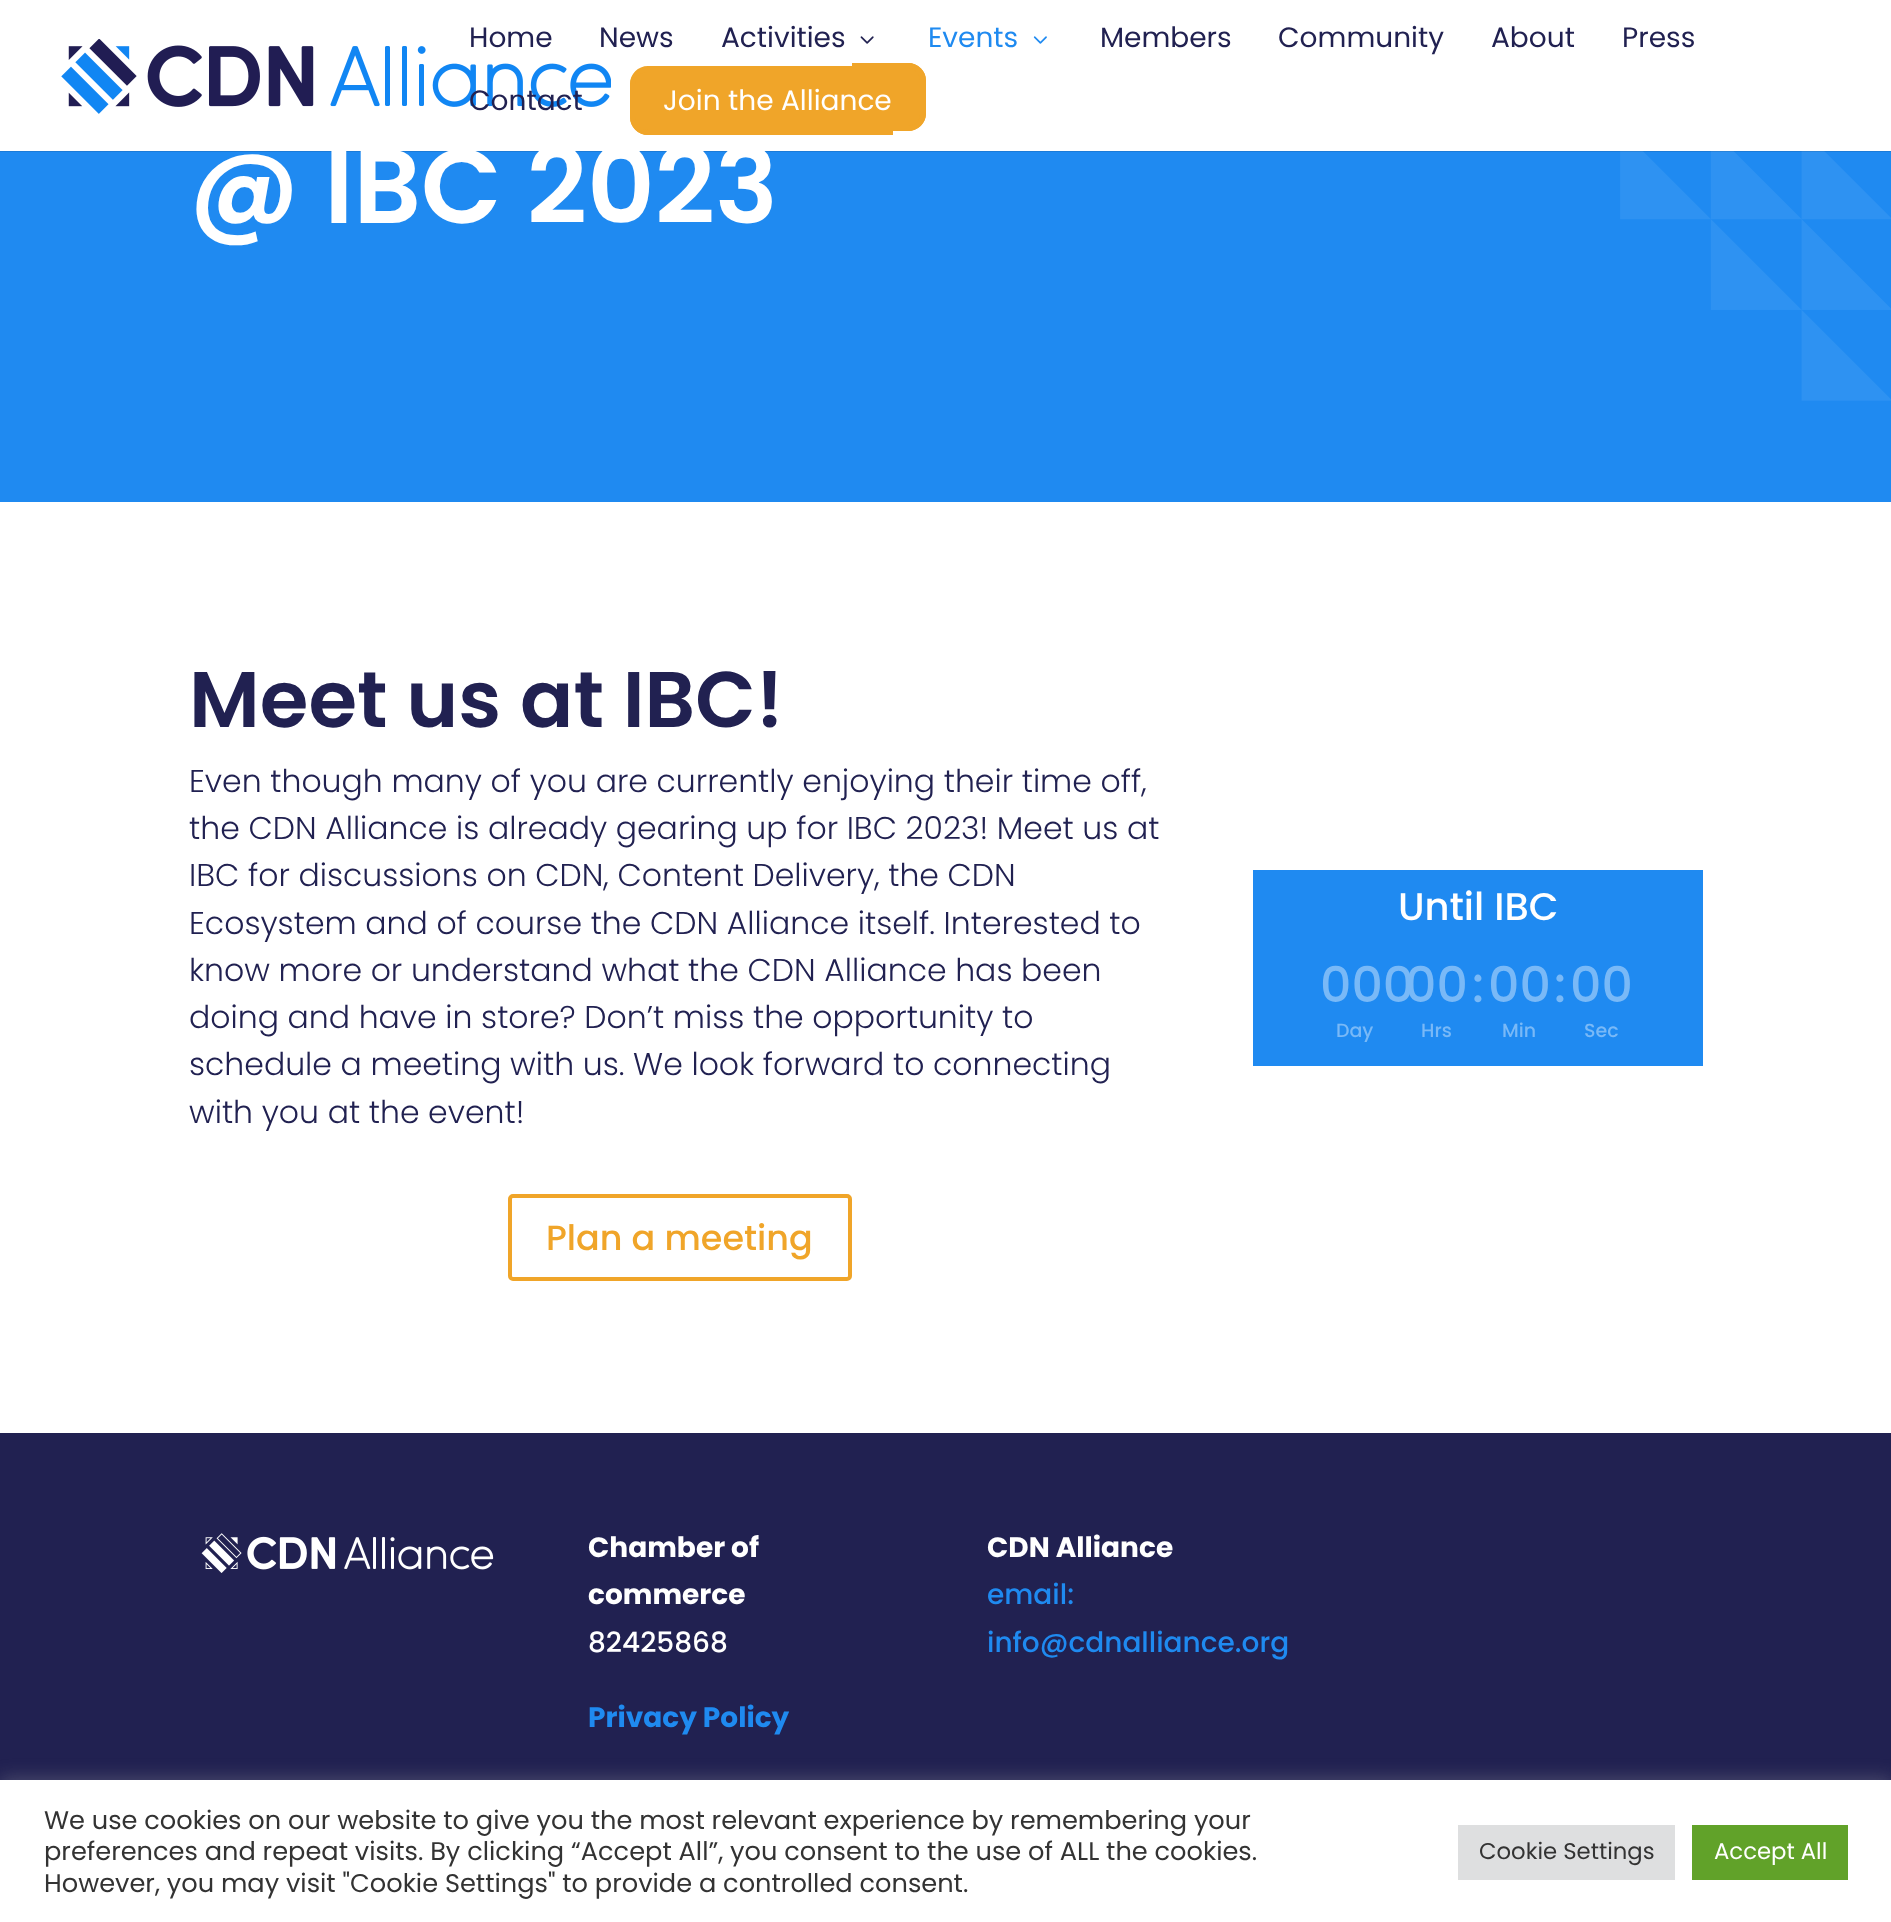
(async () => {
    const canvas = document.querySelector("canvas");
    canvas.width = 1891;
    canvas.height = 1922;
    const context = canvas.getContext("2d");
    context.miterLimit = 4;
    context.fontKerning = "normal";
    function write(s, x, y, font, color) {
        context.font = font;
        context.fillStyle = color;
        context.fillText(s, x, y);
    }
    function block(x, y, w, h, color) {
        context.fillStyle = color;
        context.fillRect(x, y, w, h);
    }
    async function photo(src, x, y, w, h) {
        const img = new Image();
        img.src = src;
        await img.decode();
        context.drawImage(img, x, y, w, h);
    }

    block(0, 0, 1891, 1922, "rgb(33, 33, 81)");
    block(0, 151, 1891, 351, "rgb(31, 138, 241)");
    await photo("media/4.png", 1438, 151, 453, 250);
    context.fillStyle = "rgba(0, 0, 0, 0.1)";
    context.beginPath();
    context.moveTo(0, 150);
    context.lineTo(0, 152);
    context.lineTo(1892, 152);
    context.lineTo(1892, 2);
    context.lineTo(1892, 150);
    context.closePath();
    context.fill();
    block(0, 0, 1891, 151, "rgb(255, 255, 255)");
    await photo("media/1.png", 61, 39, 550, 75);
    write("Home", 469, 47, "28px Poppins", "rgb(33, 33, 81)");
    write("News", 599, 47, "28px Poppins", "rgb(33, 33, 81)");
    write("Activities", 721, 47, "28px Poppins", "rgb(33, 33, 81)");
    await photo("media/2.png", 860, 36, 14, 8);
    write("Events", 928, 47, "28px Poppins", "rgb(31, 138, 240)");
    await photo("media/3.png", 1033, 36, 14, 8);
    write("Members", 1100, 47, "28px Poppins", "rgb(33, 33, 81)");
    write("Community", 1278, 47, "28px Poppins", "rgb(33, 33, 81)");
    write("About", 1491, 47, "28px Poppins", "rgb(33, 33, 81)");
    write("Press", 1622, 47, "28px Poppins", "rgb(33, 33, 81)");
    write("Contact", 469, 110, "28px Poppins", "rgb(33, 33, 81)");
    context.fillStyle = "rgb(240, 165, 41)";
    context.beginPath();
    context.roundRect(630, 67, 263, 68, [18, 0, 0, 18]);
    context.fill();
    context.beginPath();
    context.moveTo(648, 66);
    context.lineTo(892, 66);
    context.lineTo(892, 135);
    context.lineTo(648, 135);
    context.bezierCurveTo(638, 135, 630, 127, 630, 117);
    context.lineTo(630, 84);
    context.bezierCurveTo(630, 74, 638, 66, 648, 66);
    context.closePath();
    context.moveTo(648, 72);
    context.lineTo(892, 72);
    context.lineTo(892, 130);
    context.lineTo(648, 130);
    context.bezierCurveTo(641, 130, 635, 124, 635, 117);
    context.lineTo(635, 84);
    context.bezierCurveTo(635, 77, 641, 72, 648, 72);
    context.closePath();
    context.fill("evenodd");
    context.beginPath();
    context.roundRect(852, 63, 74, 68, [0, 18, 18, 0]);
    context.fill();
    context.beginPath();
    context.moveTo(852, 63);
    context.lineTo(908, 63);
    context.bezierCurveTo(918, 63, 926, 71, 926, 80);
    context.lineTo(926, 114);
    context.bezierCurveTo(926, 123, 918, 131, 908, 131);
    context.lineTo(852, 131);
    context.closePath();
    context.moveTo(852, 68);
    context.lineTo(908, 68);
    context.bezierCurveTo(915, 68, 920, 74, 920, 80);
    context.lineTo(920, 114);
    context.bezierCurveTo(920, 121, 915, 126, 908, 126);
    context.lineTo(852, 126);
    context.closePath();
    context.fill("evenodd");
    write("Join the Alliance", 663, 110, "28px Poppins", "rgb(255, 255, 255)");
    write("@ IBC 2023", 189, 223, "600 105px Poppins", "rgb(255, 255, 255)");
    block(0, 502, 1891, 931, "rgb(255, 255, 255)");
    write("Meet us at IBC!", 189, 727, "600 78.75px Poppins", "rgb(33, 33, 81)");
    write("Even though many of you are currently enjoying their time off,", 189, 792, "300 31.5px Poppins", "rgb(33, 33, 81)");
    write("the CDN Alliance is already gearing up for IBC 2023! Meet us at", 189, 839, "300 31.5px Poppins", "rgb(33, 33, 81)");
    write("IBC for discussions on CDN, Content Delivery, the CDN", 189, 886, "300 31.5px Poppins", "rgb(33, 33, 81)");
    write("Ecosystem and of course the CDN Alliance itself. Interested to", 189, 934, "300 31.5px Poppins", "rgb(33, 33, 81)");
    write("know more or understand what the CDN Alliance has been", 189, 981, "300 31.5px Poppins", "rgb(33, 33, 81)");
    write("doing and have in store? Don’t miss the opportunity to", 189, 1028, "300 31.5px Poppins", "rgb(33, 33, 81)");
    write("schedule a meeting with us. We look forward to connecting", 189, 1075, "300 31.5px Poppins", "rgb(33, 33, 81)");
    write("with you at the event!", 189, 1123, "300 31.5px Poppins", "rgb(33, 33, 81)");
    context.beginPath();
    context.roundRect(510, 1196, 340, 83, 3);
    context.strokeStyle = "rgb(240, 165, 41)";
    context.lineWidth = 4;
    context.stroke();
    write("Plan a meeting", 546, 1250, "500 35px Poppins", "rgb(240, 165, 41)");
    block(1253, 870, 450, 196, "rgb(31, 138, 241)");
    write("Until IBC", 1398, 920, "500 38.5px Poppins", "rgb(255, 255, 255)");
    write("000", 1320, 1002, "500 49px Poppins", "rgb(121, 185, 247)");
    write("Day", 1336, 1037, "500 19px Poppins", "rgb(121, 185, 247)");
    write("00", 1405, 1002, "500 49px Poppins", "rgb(121, 185, 247)");
    write("Hrs", 1421, 1037, "500 19px Poppins", "rgb(121, 185, 247)");
    write(":", 1472, 1002, "500 49px Poppins", "rgb(121, 185, 247)");
    write("00", 1488, 1002, "500 49px Poppins", "rgb(121, 185, 247)");
    write("Min", 1502, 1037, "500 19px Poppins", "rgb(121, 185, 247)");
    write(":", 1554, 1002, "500 49px Poppins", "rgb(121, 185, 247)");
    write("00", 1570, 1002, "500 49px Poppins", "rgb(121, 185, 247)");
    write("Sec", 1584, 1037, "500 19px Poppins", "rgb(121, 185, 247)");
    await photo("media/5.png", 201, 1533, 293, 40);
    write("Chamber of", 588, 1557, "bold 28px Poppins", "rgb(255, 255, 255)");
    write("commerce", 588, 1604, "bold 28px Poppins", "rgb(255, 255, 255)");
    write("82425868", 588, 1652, "500 28px Poppins", "rgb(255, 255, 255)");
    write("Privacy Policy", 588, 1727, "bold 28px Poppins", "rgb(31, 138, 240)");
    write("CDN Alliance", 987, 1557, "bold 28px Poppins", "rgb(255, 255, 255)");
    write("email:", 987, 1604, "500 28px Poppins", "rgb(31, 138, 240)");
    write("info@cdnalliance.org", 987, 1652, "500 28px Poppins", "rgb(31, 138, 240)");
    context.fillStyle = "rgba(172, 171, 171, 0.3)";
    context.filter = "blur(9px)";
    context.beginPath();
    context.rect(0, 1778, 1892, 144);
    context.fill();
    context.filter = "none";
    block(0, 1780, 1891, 142, "rgb(255, 255, 255)");
    write("We use cookies on our website to give you the most relevant experience by remembering your", 44, 1829, "25.65px Poppins", "rgb(51, 51, 51)");
    write("preferences and repeat visits. By clicking “Accept All”, you consent to the use of ALL the cookies.", 44, 1860, "25.65px Poppins", "rgb(51, 51, 51)");
    write("However, you may visit \"Cookie Settings\" to provide a controlled consent.", 44, 1892, "25.65px Poppins", "rgb(51, 51, 51)");
    block(1458, 1825, 217, 55, "rgb(222, 223, 224)");
    write("Cookie Settings", 1479, 1859, "22.75px Poppins", "rgb(51, 51, 51)");
    block(1692, 1825, 156, 55, "rgb(97, 162, 41)");
    write("Accept All", 1714, 1859, "22.75px Poppins", "rgb(255, 255, 255)");
})();
